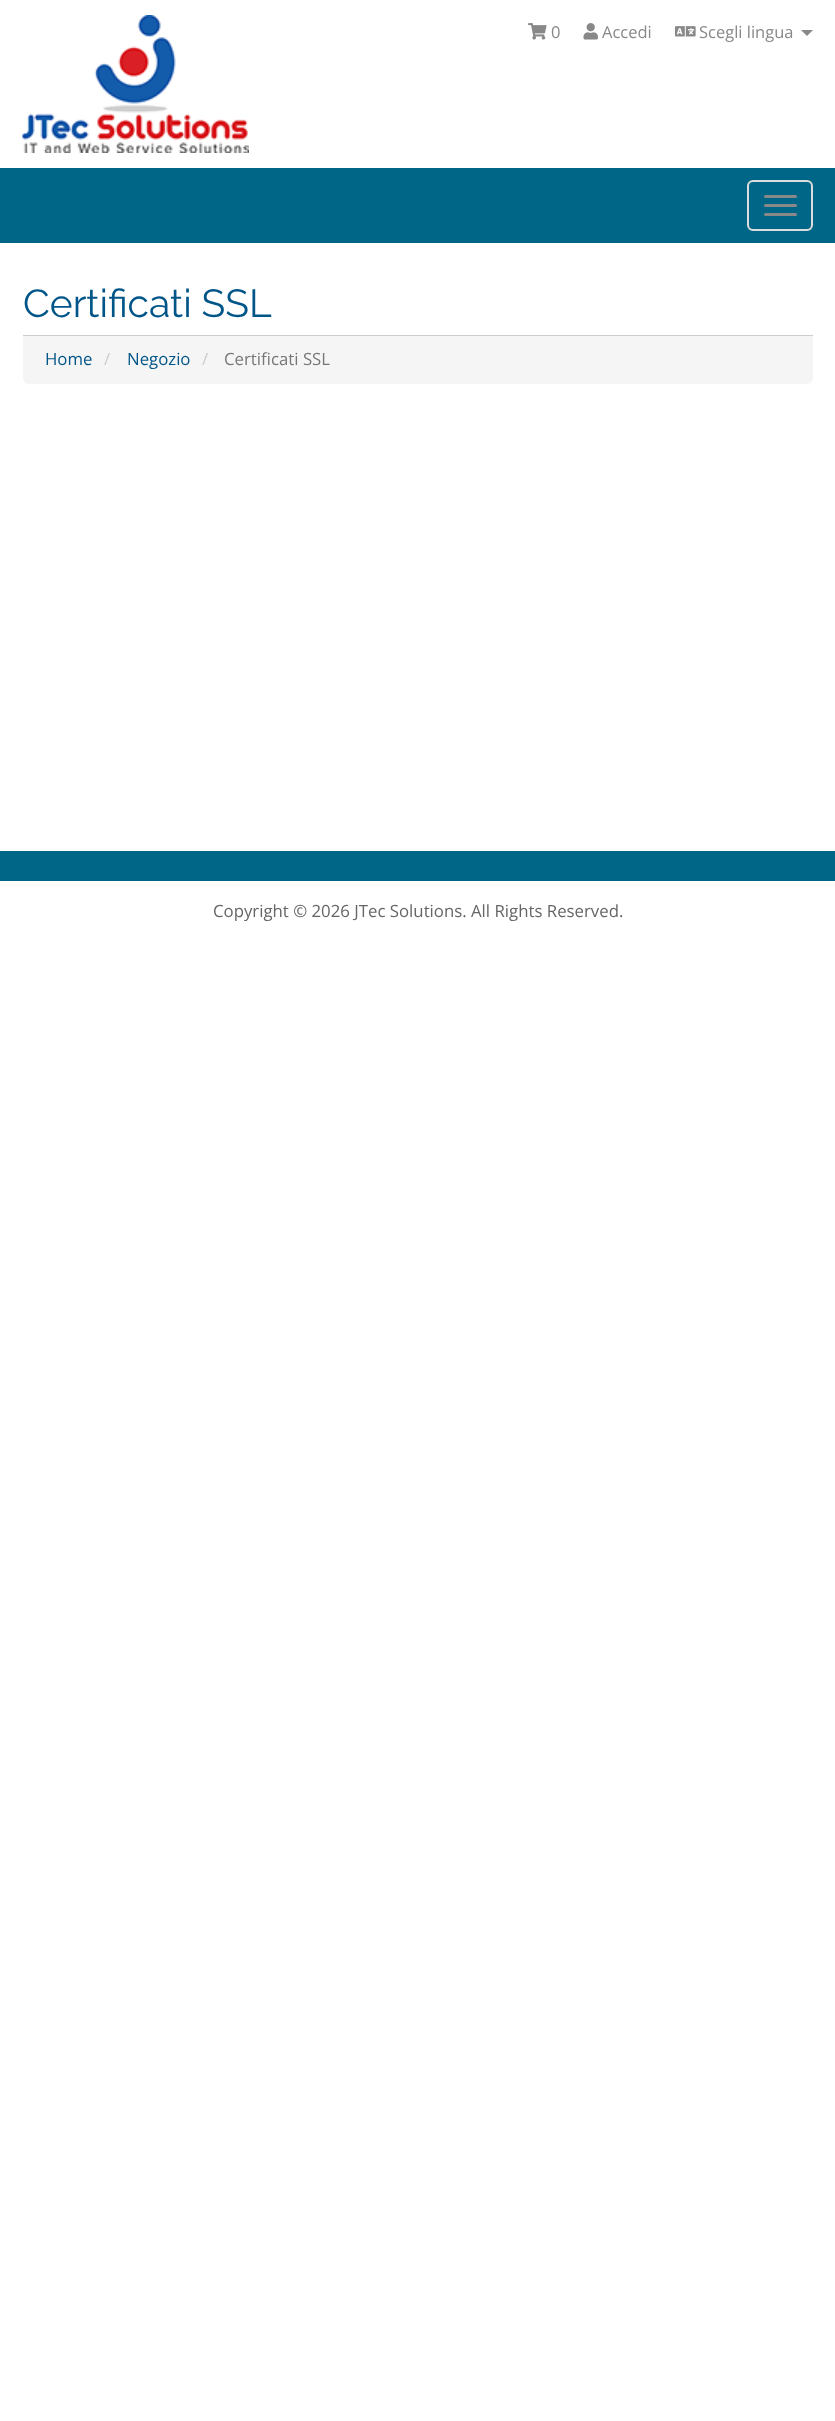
(async () => {
    const canvas = document.querySelector("canvas");
    canvas.width = 835;
    canvas.height = 2421;
    const context = canvas.getContext("2d");
    context.miterLimit = 4;
    context.fontKerning = "normal";
    function write(s, x, y, font, color) {
        context.font = font;
        context.fillStyle = color;
        context.fillText(s, x, y);
    }
    function block(x, y, w, h, color) {
        context.fillStyle = color;
        context.fillRect(x, y, w, h);
    }
    function card(x, y, w, h, r, color) {
        context.fillStyle = color;
        context.beginPath();
        context.roundRect(x, y, w, h, r);
        context.fill();
    }
    async function photo(src, x, y, w, h) {
        const img = new Image();
        img.src = src;
        await img.decode();
        context.drawImage(img, x, y, w, h);
    }

    block(0, 0, 835, 2421, "rgb(255, 255, 255)");
    await photo("media/1.png", 22, 15, 227, 138);
    await photo("media/2.png", 528, 23, 19, 17);
    write("0", 551, 38, "16.5px Open Sans", "rgb(136, 136, 136)");
    await photo("media/3.png", 583, 23, 15, 17);
    write("Accedi", 602, 38, "16.5px Open Sans", "rgb(136, 136, 136)");
    await photo("media/4.png", 675, 26, 21, 11);
    write("Scegli lingua", 699, 38, "16.5px Open Sans", "rgb(136, 136, 136)");
    context.beginPath();
    context.moveTo(801, 30);
    context.lineTo(813, 30);
    context.lineTo(807, 36);
    context.closePath();
    context.fill();
    block(0, 168, 835, 75, "rgb(0, 102, 135)");
    context.beginPath();
    context.roundRect(748, 181, 64, 49, 5);
    context.strokeStyle = "rgb(221, 221, 221)";
    context.lineWidth = 2;
    context.stroke();
    card(764, 195, 33, 3, 1.5, "rgb(136, 136, 136)");
    card(764, 204, 33, 3, 1.5, "rgb(136, 136, 136)");
    card(764, 213, 33, 3, 1.5, "rgb(136, 136, 136)");
    block(23, 335, 790, 1, "rgb(204, 204, 204)");
    write("Certificati SSL", 23, 317, "39px Raleway", "rgb(0, 85, 136)");
    context.fillStyle = "rgb(245, 245, 245)";
    context.beginPath();
    context.roundRect(23, 336, 790, 48, [0, 0, 6, 6]);
    context.fill();
    write("Home", 45, 365, "16.8px Open Sans", "rgb(0, 85, 136)");
    write("/", 104, 365, "16.8px Open Sans", "rgb(204, 204, 204)");
    write("Negozio", 127, 365, "16.8px Open Sans", "rgb(0, 85, 136)");
    write("/", 202, 365, "16.8px Open Sans", "rgb(204, 204, 204)");
    write("Certificati SSL", 224, 365, "16.8px Open Sans", "rgb(119, 119, 119)");
    block(0, 851, 835, 30, "rgb(0, 102, 135)");
    write("Copyright © 2026 JTec Solutions. All Rights Reserved.", 213, 917, "16.8px Open Sans", "rgb(102, 102, 102)");
})();
